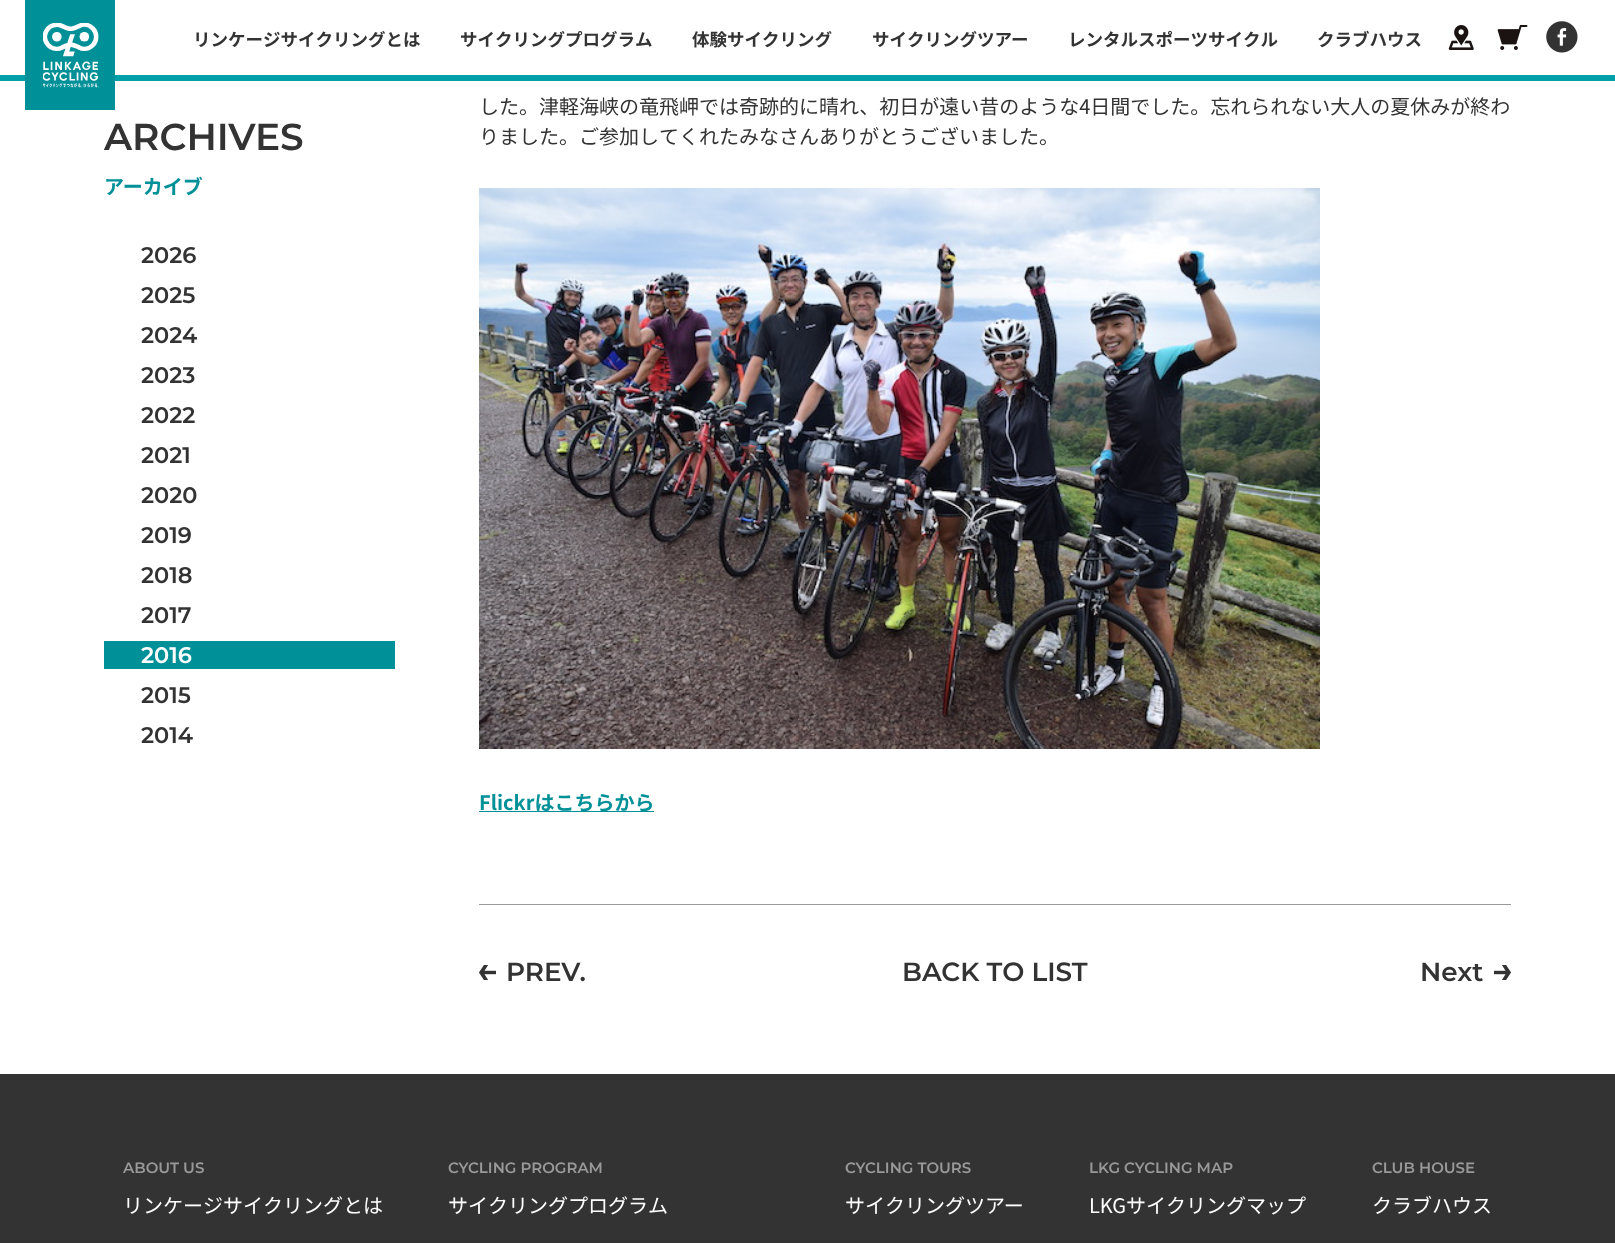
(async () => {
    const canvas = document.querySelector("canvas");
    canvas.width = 1615;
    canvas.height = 1243;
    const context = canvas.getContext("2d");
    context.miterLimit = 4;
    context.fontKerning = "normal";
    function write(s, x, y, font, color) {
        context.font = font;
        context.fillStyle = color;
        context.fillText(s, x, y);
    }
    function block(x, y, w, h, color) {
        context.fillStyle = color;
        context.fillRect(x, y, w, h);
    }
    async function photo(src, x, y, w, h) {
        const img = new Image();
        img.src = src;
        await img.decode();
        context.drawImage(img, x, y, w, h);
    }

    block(0, 0, 1615, 1243, "rgb(255, 255, 255)");
    block(0, 75, 1615, 6, "rgb(1, 160, 168)");
    block(25, 0, 90, 110, "rgb(0, 144, 152)");
    await photo("media/1.png", 43, 23, 56, 65);
    await photo("media/2.png", 1448, 25, 26, 25);
    await photo("media/3.png", 1497, 25, 31, 25);
    await photo("media/4.png", 1546, 21, 32, 32);
    write("リンケージサイクリングとは", 193, 46, "bold 17.5px Noto Sans JP", "rgb(51, 51, 51)");
    write("サイクリングプログラム", 460, 46, "bold 17.5px Noto Sans JP", "rgb(51, 51, 51)");
    write("体験サイクリング", 692, 46, "bold 17.5px Noto Sans JP", "rgb(51, 51, 51)");
    write("サイクリングツアー", 872, 46, "bold 17.5px Noto Sans JP", "rgb(51, 51, 51)");
    write("レンタルスポーツサイクル", 1068, 46, "bold 17.5px Noto Sans JP", "rgb(51, 51, 51)");
    write("クラブハウス", 1317, 46, "bold 17.5px Noto Sans JP", "rgb(51, 51, 51)");
    write("ARCHIVES", 104, 150, "600 37.5px Montserrat", "rgb(51, 51, 51)");
    write("アーカイブ", 104, 194, "bold 20px Noto Sans JP", "rgb(0, 144, 152)");
    write("2026", 141, 263, "600 22.5px Montserrat", "rgb(51, 51, 51)");
    write("2025", 141, 303, "600 22.5px Montserrat", "rgb(51, 51, 51)");
    write("2024", 141, 343, "600 22.5px Montserrat", "rgb(51, 51, 51)");
    write("2023", 141, 383, "600 22.5px Montserrat", "rgb(51, 51, 51)");
    write("2022", 141, 423, "600 22.5px Montserrat", "rgb(51, 51, 51)");
    write("2021", 141, 463, "600 22.5px Montserrat", "rgb(51, 51, 51)");
    write("2020", 141, 503, "600 22.5px Montserrat", "rgb(51, 51, 51)");
    write("2019", 141, 543, "600 22.5px Montserrat", "rgb(51, 51, 51)");
    write("2018", 141, 583, "600 22.5px Montserrat", "rgb(51, 51, 51)");
    write("2017", 141, 623, "600 22.5px Montserrat", "rgb(51, 51, 51)");
    block(104, 641, 291, 28, "rgb(0, 144, 152)");
    write("2016", 141, 663, "600 22.5px Montserrat", "rgb(255, 255, 255)");
    write("2015", 141, 703, "600 22.5px Montserrat", "rgb(51, 51, 51)");
    write("2014", 141, 743, "600 22.5px Montserrat", "rgb(51, 51, 51)");
    write("した。津軽海峡の竜飛岬では奇跡的に晴れ、初日が遠い昔のような4日間でした。忘れられない大人の夏休みが終わ", 479, 114, "20px Noto Sans JP", "rgb(51, 51, 51)");
    write("りました。ご参加してくれたみなさんありがとうございました。", 479, 144, "20px Noto Sans JP", "rgb(51, 51, 51)");
    await photo("media/5.png", 479, 188, 841, 561);
    block(479, 811, 175, 1, "rgb(0, 144, 152)");
    write("Flickrはこちらから", 479, 810, "bold 20px Noto Sans JP", "rgb(0, 144, 152)");
    block(479, 904, 1032, 1, "rgb(153, 153, 153)");
    await photo("media/6.png", 479, 965, 17, 15);
    write("PREV.", 506, 981, "600 26.25px Montserrat", "rgb(51, 51, 51)");
    write("BACK TO LIST", 902, 981, "600 26.25px Montserrat", "rgb(51, 51, 51)");
    write("Next", 1420, 981, "600 26.25px Montserrat", "rgb(51, 51, 51)");
    await photo("media/7.png", 1494, 965, 17, 15);
    block(0, 1074, 1615, 169, "rgb(51, 51, 51)");
    write("ABOUT US", 123, 1173, "600 15px Montserrat", "rgb(153, 153, 153)");
    write("リンケージサイクリングとは", 123, 1213, "20px Noto Sans JP", "rgb(255, 255, 255)");
    write("CYCLING PROGRAM", 448, 1173, "600 15px Montserrat", "rgb(153, 153, 153)");
    write("サイクリングプログラム", 448, 1213, "20px Noto Sans JP", "rgb(255, 255, 255)");
    write("CYCLING TOURS", 845, 1173, "600 15px Montserrat", "rgb(153, 153, 153)");
    write("サイクリングツアー", 845, 1213, "20px Noto Sans JP", "rgb(255, 255, 255)");
    write("LKG CYCLING MAP", 1089, 1173, "600 15px Montserrat", "rgb(153, 153, 153)");
    write("LKGサイクリングマップ", 1089, 1213, "20px Noto Sans JP", "rgb(255, 255, 255)");
    write("CLUB HOUSE", 1372, 1173, "600 15px Montserrat", "rgb(153, 153, 153)");
    write("クラブハウス", 1372, 1213, "20px Noto Sans JP", "rgb(255, 255, 255)");
})();
